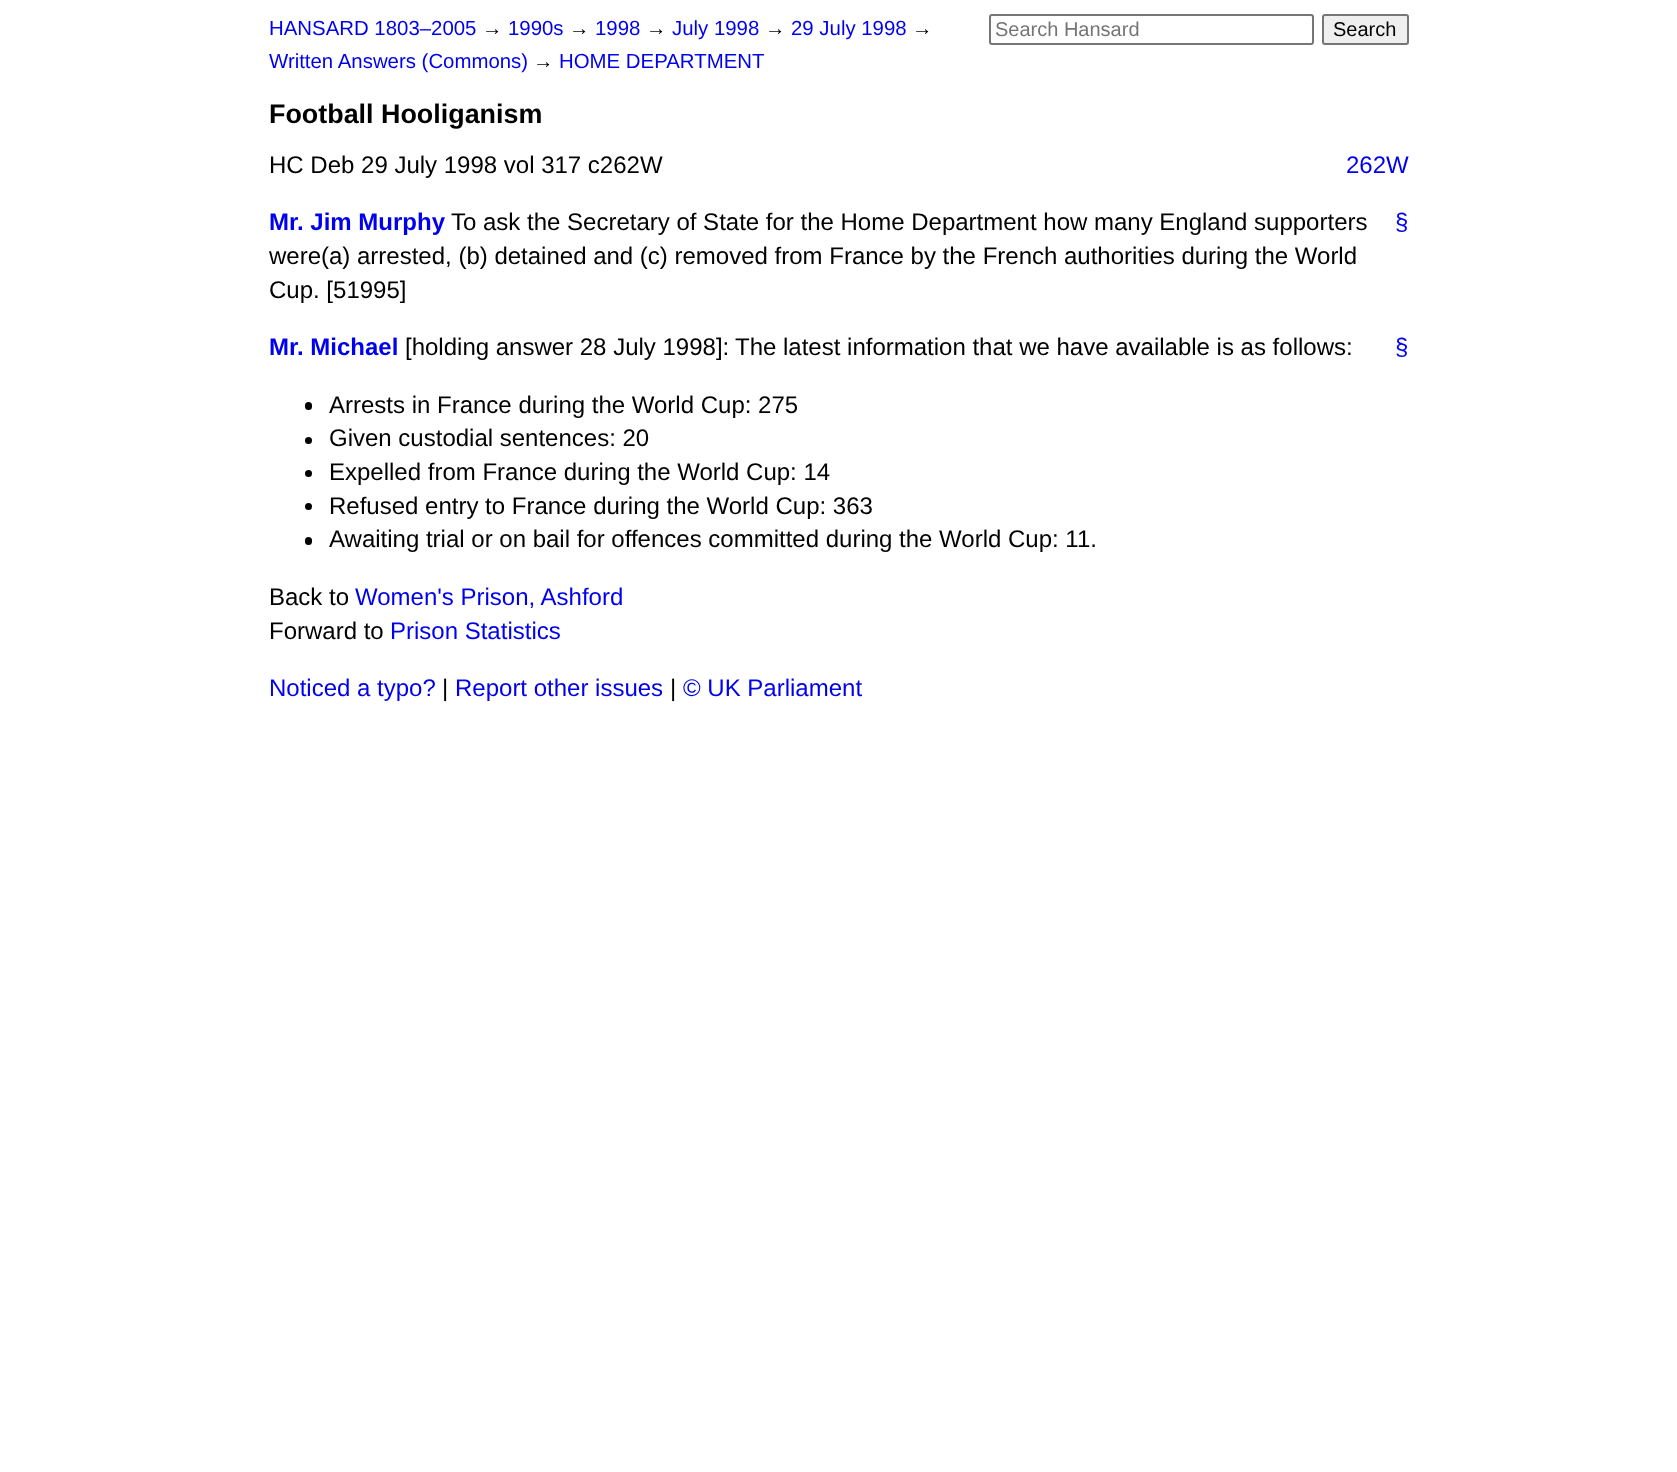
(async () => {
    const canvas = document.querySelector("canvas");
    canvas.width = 1677;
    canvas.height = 1472;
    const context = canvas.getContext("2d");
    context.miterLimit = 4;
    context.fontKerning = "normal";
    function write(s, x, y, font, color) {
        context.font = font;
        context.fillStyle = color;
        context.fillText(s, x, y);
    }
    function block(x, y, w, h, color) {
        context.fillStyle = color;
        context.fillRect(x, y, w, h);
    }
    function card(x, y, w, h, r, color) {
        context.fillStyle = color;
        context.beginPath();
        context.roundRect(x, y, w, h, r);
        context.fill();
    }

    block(0, 0, 1677, 1472, "rgb(255, 255, 255)");
    write("HANSARD 1803–2005", 269, 35, "20.4px Liberation Sans", "rgb(0, 0, 238)");
    write("→", 482, 35, "20.4px Liberation Sans", "rgb(0, 0, 0)");
    write("1990s", 508, 35, "20.4px Liberation Sans", "rgb(0, 0, 238)");
    write("→", 569, 35, "20.4px Liberation Sans", "rgb(0, 0, 0)");
    write("1998", 595, 35, "20.4px Liberation Sans", "rgb(0, 0, 238)");
    write("→", 646, 35, "20.4px Liberation Sans", "rgb(0, 0, 0)");
    write("July 1998", 672, 35, "20.4px Liberation Sans", "rgb(0, 0, 238)");
    write("→", 765, 35, "20.4px Liberation Sans", "rgb(0, 0, 0)");
    write("29 July 1998", 791, 35, "20.4px Liberation Sans", "rgb(0, 0, 238)");
    write("→", 912, 35, "20.4px Liberation Sans", "rgb(0, 0, 0)");
    write("Written Answers (Commons)", 269, 68, "20.4px Liberation Sans", "rgb(0, 0, 238)");
    write("→", 533, 68, "20.4px Liberation Sans", "rgb(0, 0, 0)");
    write("HOME DEPARTMENT", 559, 68, "20.4px Liberation Sans", "rgb(0, 0, 238)");
    context.beginPath();
    context.roundRect(990, 15, 323, 29, 2);
    context.strokeStyle = "rgb(118, 118, 118)";
    context.lineWidth = 2;
    context.stroke();
    write("Search Hansard", 995, 36, "20px Liberation Sans", "rgb(117, 117, 117)");
    context.fillStyle = "rgb(239, 239, 239)";
    context.beginPath();
    context.roundRect(1323, 15, 85, 29, 2);
    context.fill();
    context.stroke();
    write("Search", 1333, 36, "20px Liberation Sans", "rgb(0, 0, 0)");
    write("Football Hooliganism", 269, 123, "bold 26.9px Liberation Sans", "rgb(0, 0, 0)");
    write("HC Deb 29 July 1998 vol 317 c262W", 269, 173, "24px Liberation Sans", "rgb(0, 0, 0)");
    write("262W", 1346, 173, "24px Liberation Sans", "rgb(0, 0, 238)");
    write("Mr. Jim Murphy", 269, 230, "bold 24px Liberation Sans", "rgb(0, 0, 238)");
    write("To ask the Secretary of State for the Home Department how many England supporters", 451, 230, "24px Liberation Sans", "rgb(0, 0, 0)");
    write("§", 1395, 230, "24px Liberation Sans", "rgb(0, 0, 238)");
    write("were(a) arrested, (b) detained and (c) removed from France by the French authorities during the World", 269, 264, "24px Liberation Sans", "rgb(0, 0, 0)");
    write("Cup. [51995]", 269, 298, "24px Liberation Sans", "rgb(0, 0, 0)");
    write("Mr. Michael", 269, 355, "bold 24px Liberation Sans", "rgb(0, 0, 238)");
    write("[holding answer 28 July 1998]:", 405, 355, "24px Liberation Sans", "rgb(0, 0, 0)");
    write("The latest information that we have available is as follows:", 735, 355, "24px Liberation Sans", "rgb(0, 0, 0)");
    write("§", 1395, 355, "24px Liberation Sans", "rgb(0, 0, 238)");
    card(305, 402, 7, 8, 3.5, "rgb(0, 0, 0)");
    write("Arrests in France during the World Cup: 275", 329, 413, "24px Liberation Sans", "rgb(0, 0, 0)");
    context.beginPath();
    context.arc(308.5, 440.5, 3.5, 0, Math.PI * 2);
    context.fill();
    write("Given custodial sentences: 20", 329, 446, "24px Liberation Sans", "rgb(0, 0, 0)");
    context.beginPath();
    context.arc(308.5, 473.5, 3.5, 0, Math.PI * 2);
    context.fill();
    write("Expelled from France during the World Cup: 14", 329, 480, "24px Liberation Sans", "rgb(0, 0, 0)");
    context.beginPath();
    context.arc(308.5, 506.5, 3.5, 0, Math.PI * 2);
    context.fill();
    write("Refused entry to France during the World Cup: 363", 329, 514, "24px Liberation Sans", "rgb(0, 0, 0)");
    card(305, 537, 7, 8, 3.5, "rgb(0, 0, 0)");
    write("Awaiting trial or on bail for offences committed during the World Cup: 11.", 329, 547, "24px Liberation Sans", "rgb(0, 0, 0)");
    write("Back to", 269, 605, "24px Liberation Sans", "rgb(0, 0, 0)");
    write("Women's Prison, Ashford", 355, 605, "24px Liberation Sans", "rgb(0, 0, 238)");
    write("Forward to", 269, 639, "24px Liberation Sans", "rgb(0, 0, 0)");
    write("Prison Statistics", 390, 639, "24px Liberation Sans", "rgb(0, 0, 238)");
    write("Noticed a typo?", 269, 696, "24px Liberation Sans", "rgb(0, 0, 238)");
    write("|", 442, 696, "24px Liberation Sans", "rgb(0, 0, 0)");
    write("Report other issues", 455, 696, "24px Liberation Sans", "rgb(0, 0, 238)");
    write("|", 670, 696, "24px Liberation Sans", "rgb(0, 0, 0)");
    write("© UK Parliament", 683, 696, "24px Liberation Sans", "rgb(0, 0, 238)");
})();
